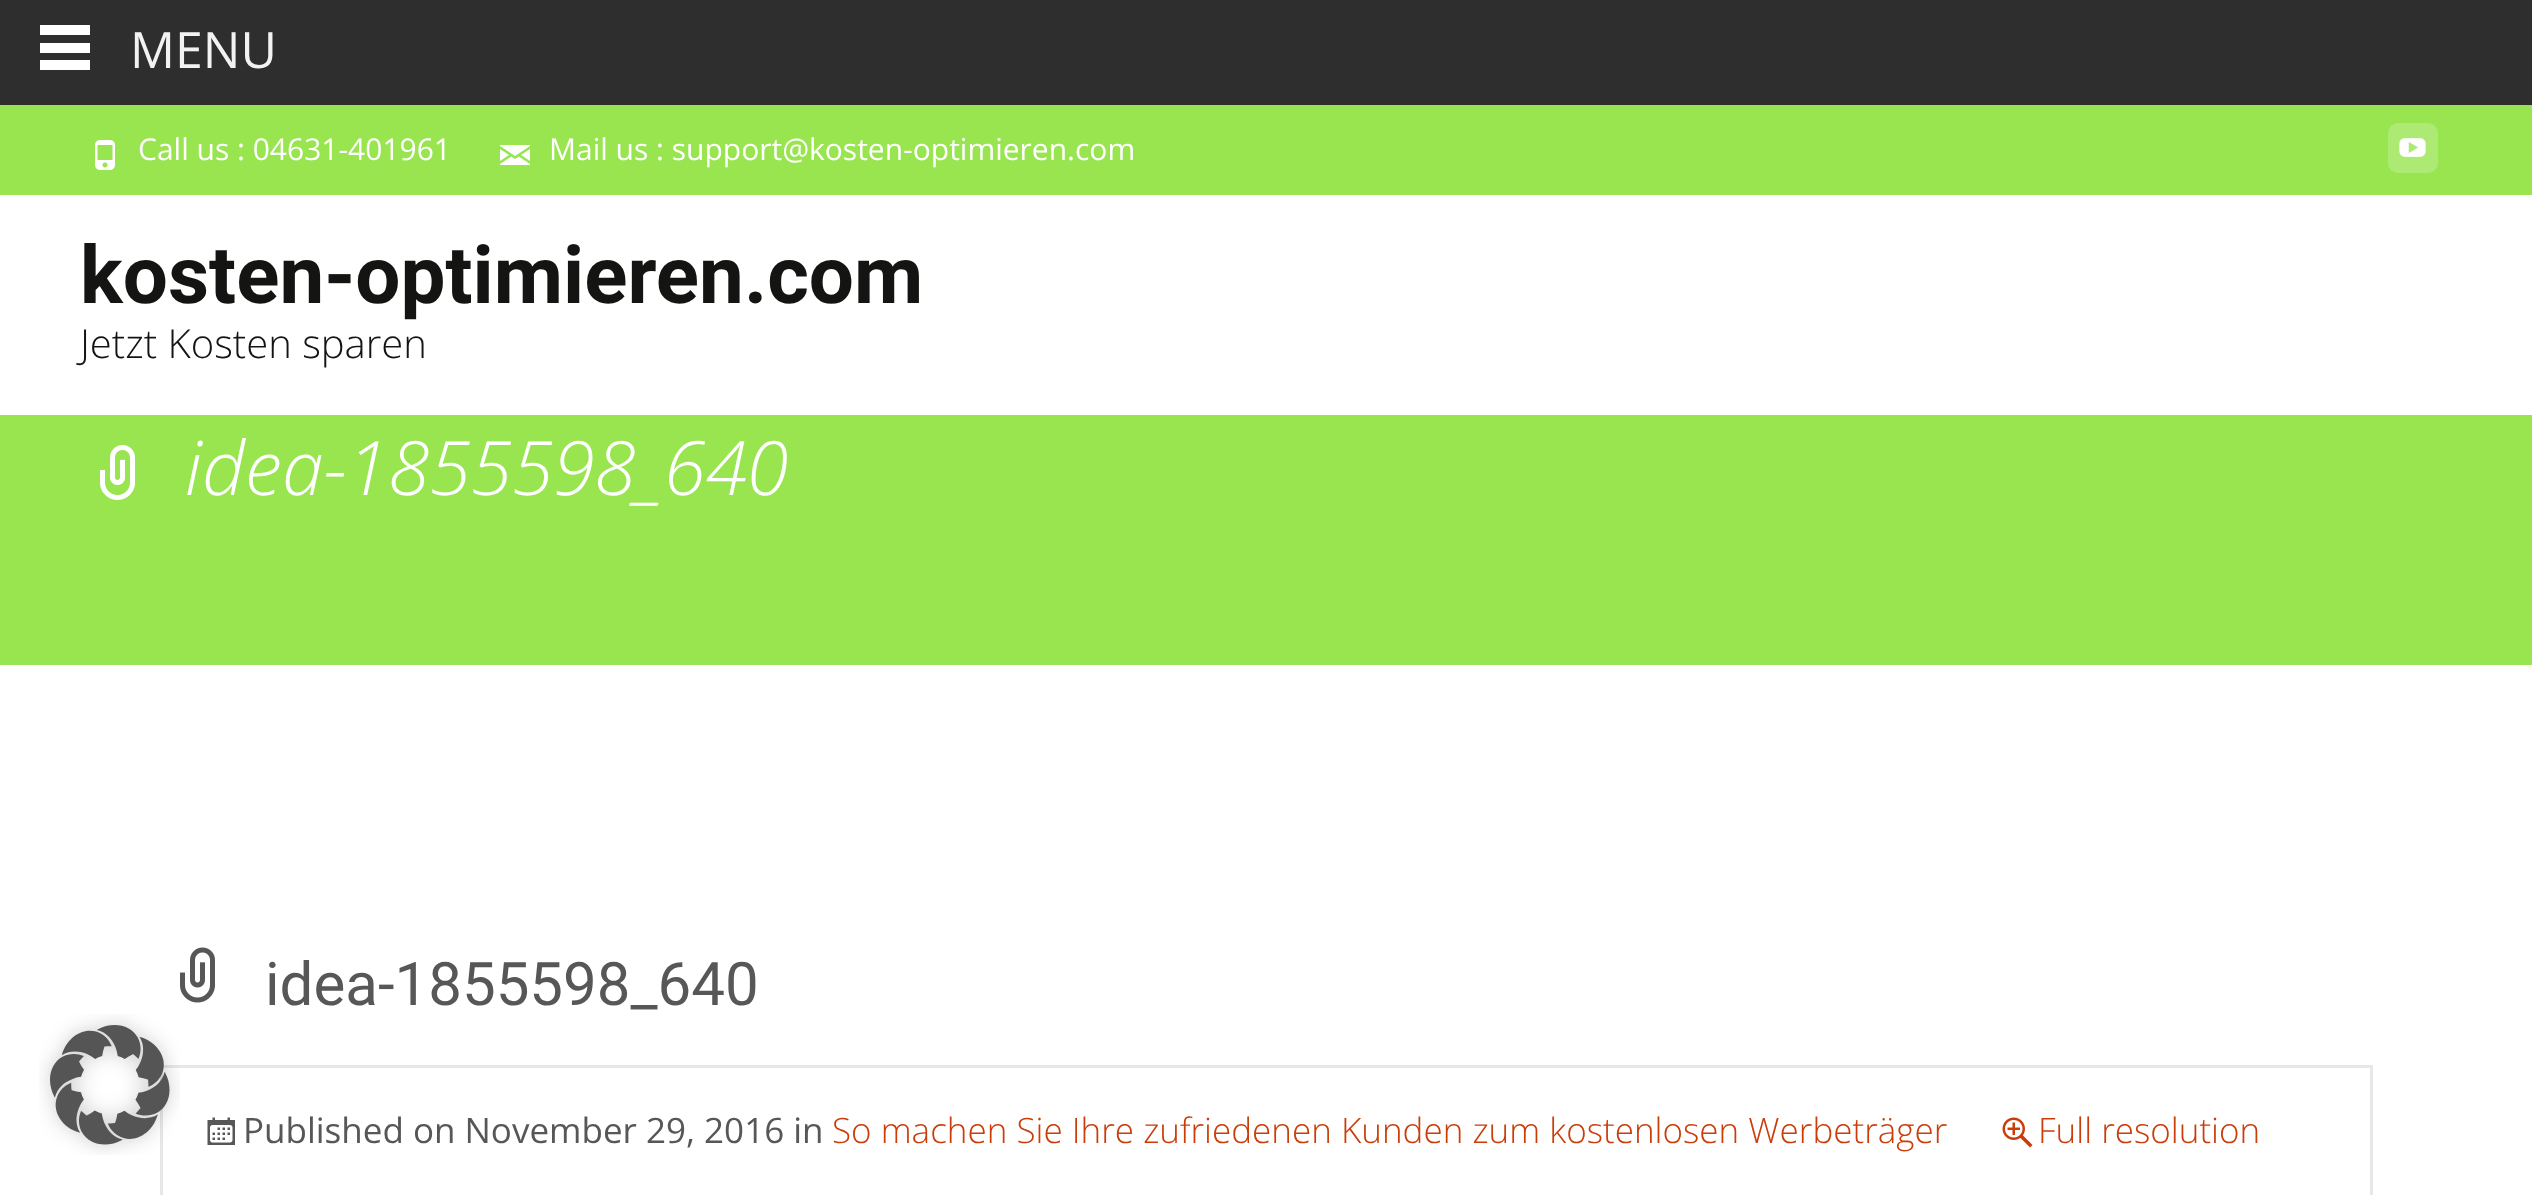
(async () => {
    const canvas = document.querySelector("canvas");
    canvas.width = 2532;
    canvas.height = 1195;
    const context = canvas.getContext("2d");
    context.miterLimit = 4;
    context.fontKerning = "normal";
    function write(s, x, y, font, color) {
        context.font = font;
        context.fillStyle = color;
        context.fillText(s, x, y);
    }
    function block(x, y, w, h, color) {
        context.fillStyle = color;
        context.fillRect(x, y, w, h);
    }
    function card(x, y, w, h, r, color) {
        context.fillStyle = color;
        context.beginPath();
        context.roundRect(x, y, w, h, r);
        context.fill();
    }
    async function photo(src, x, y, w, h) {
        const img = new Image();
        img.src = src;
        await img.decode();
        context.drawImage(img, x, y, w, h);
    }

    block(0, 0, 2532, 1195, "rgb(255, 255, 255)");
    block(0, 0, 2532, 105, "rgb(46, 46, 46)");
    block(40, 25, 50, 10, "rgb(255, 255, 255)");
    block(40, 43, 50, 10, "rgb(255, 255, 255)");
    block(40, 60, 50, 10, "rgb(255, 255, 255)");
    write("MENU", 130, 68, "50px Open Sans", "rgb(242, 242, 242)");
    block(0, 105, 2532, 90, "rgb(152, 229, 80)");
    await photo("media/1.png", 95, 140, 20, 30);
    write("Call us : 04631-401961", 138, 160, "30px Open Sans", "rgb(255, 255, 255)");
    await photo("media/2.png", 500, 145, 30, 20);
    write("Mail us : support@kosten-optimieren.com", 549, 160, "30px Open Sans", "rgb(255, 255, 255)");
    card(2388, 123, 50, 50, 10, "rgb(173, 234, 115)");
    await photo("media/3.png", 2399, 138, 27, 19);
    write("kosten-optimieren.com", 80, 303, "bold 80px Roboto", "rgb(20, 20, 18)");
    write("Jetzt Kosten sparen", 80, 358, "300 40px Open Sans", "rgb(20, 20, 18)");
    block(0, 415, 2532, 250, "rgb(152, 229, 80)");
    await photo("media/4.png", 100, 445, 35, 55);
    write("idea-1855598_640", 185, 495, "italic 300 75px Open Sans", "rgb(255, 255, 255)");
    await photo("media/5.png", 180, 947, 35, 56);
    write("idea-1855598_640", 265, 1005, "60px Roboto", "rgb(87, 87, 87)");
    context.strokeStyle = "rgb(231, 231, 231)";
    context.lineWidth = 3;
    context.strokeRect(161.5, 1066.5, 2210, 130);
    await photo("media/6.png", 207, 1117, 28, 28);
    write("Published on November 29, 2016 in", 243, 1143, "35px Open Sans", "rgb(87, 87, 87)");
    write("So machen Sie Ihre zufriedenen Kunden zum kostenlosen Werbeträger", 832, 1143, "300 35px Open Sans", "rgb(202, 60, 8)");
    await photo("media/7.png", 2002, 1117, 31, 31);
    write("Full resolution", 2038, 1143, "300 35px Open Sans", "rgb(202, 60, 8)");
    await photo("media/8.png", 39, 1014, 141, 141);
})();
